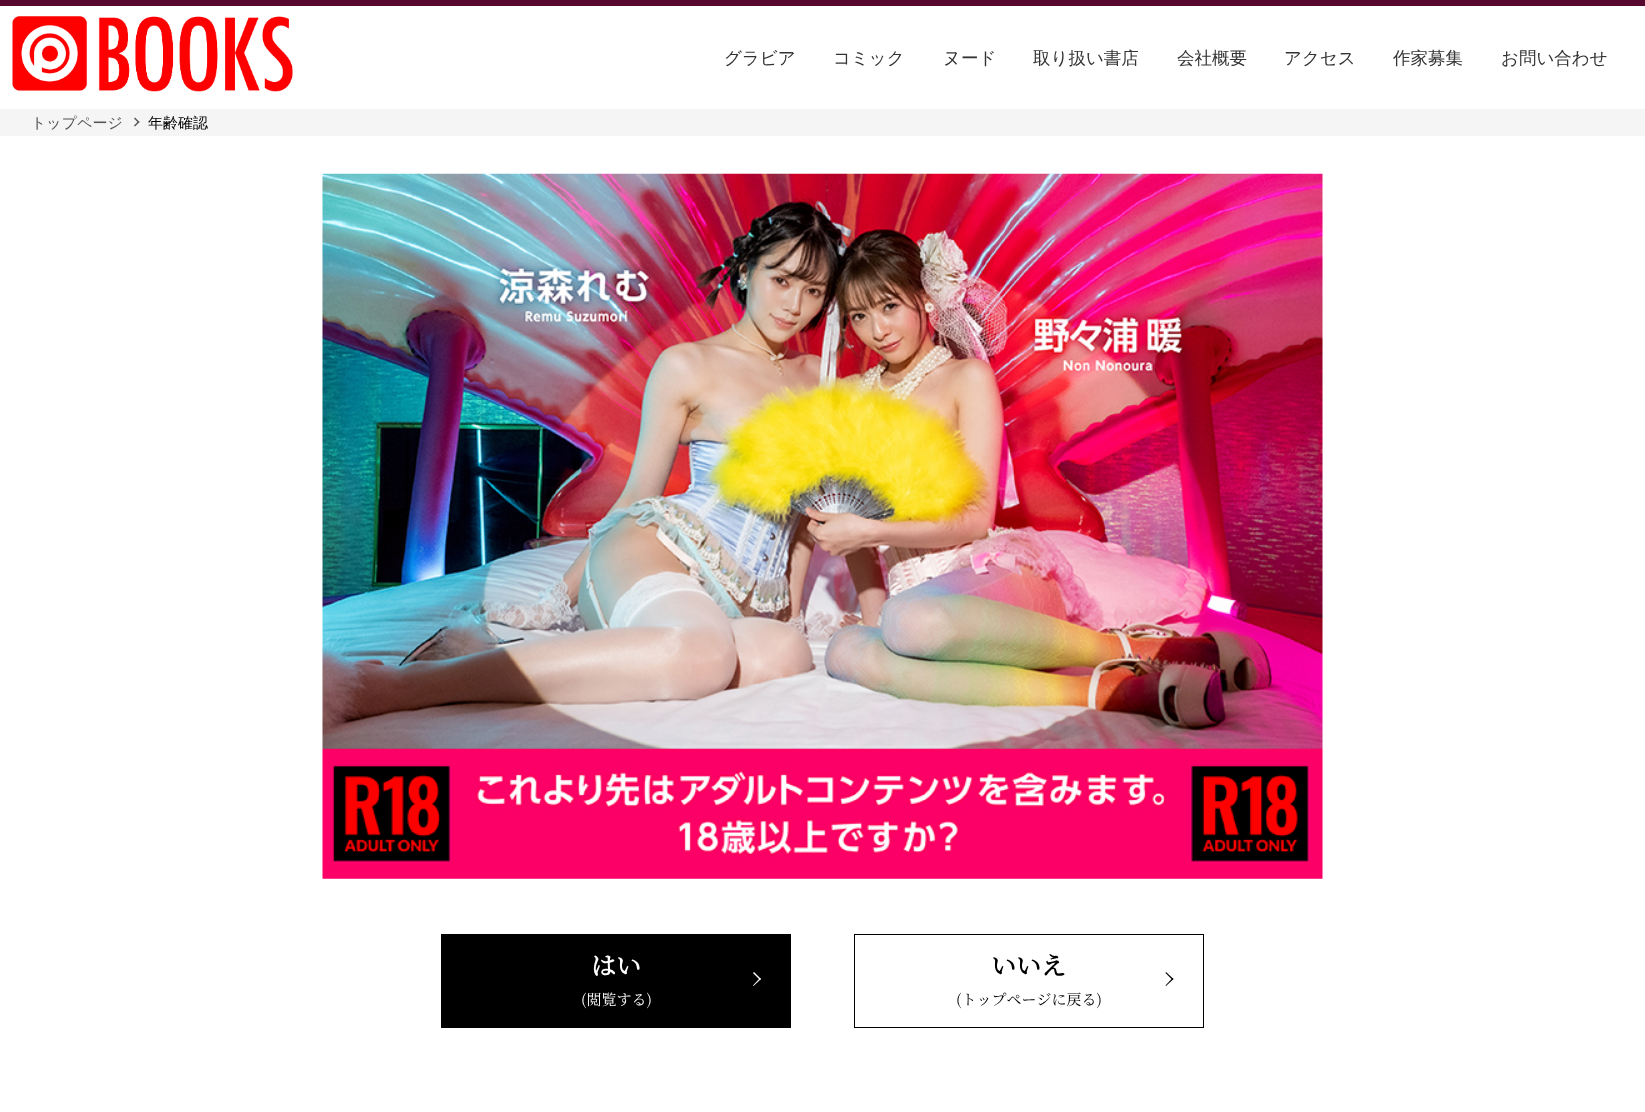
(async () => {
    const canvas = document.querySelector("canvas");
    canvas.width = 1645;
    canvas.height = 1112;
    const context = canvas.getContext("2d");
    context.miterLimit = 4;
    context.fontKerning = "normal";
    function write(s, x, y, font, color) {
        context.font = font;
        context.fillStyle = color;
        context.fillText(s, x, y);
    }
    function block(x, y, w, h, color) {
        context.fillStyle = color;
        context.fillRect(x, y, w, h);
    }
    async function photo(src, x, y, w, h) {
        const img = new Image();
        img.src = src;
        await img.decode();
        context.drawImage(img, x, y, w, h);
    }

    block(0, 0, 1645, 1112, "rgb(255, 255, 255)");
    block(0, 0, 1645, 6, "rgb(86, 8, 47)");
    await photo("media/1.png", 12, 16, 281, 76);
    write("グラビア", 724, 64, "500 17.5px WenQuanYi Zen Hei", "rgb(51, 51, 51)");
    write("コミック", 833, 64, "500 17.5px WenQuanYi Zen Hei", "rgb(51, 51, 51)");
    write("ヌード", 943, 64, "500 17.5px WenQuanYi Zen Hei", "rgb(51, 51, 51)");
    write("取り扱い書店", 1033, 64, "500 17.5px WenQuanYi Zen Hei", "rgb(51, 51, 51)");
    write("会社概要", 1177, 64, "500 17.5px WenQuanYi Zen Hei", "rgb(51, 51, 51)");
    write("アクセス", 1284, 64, "500 17.5px WenQuanYi Zen Hei", "rgb(51, 51, 51)");
    write("作家募集", 1393, 64, "500 17.5px WenQuanYi Zen Hei", "rgb(51, 51, 51)");
    write("お問い合わせ", 1501, 64, "500 17.5px WenQuanYi Zen Hei", "rgb(51, 51, 51)");
    block(0, 109, 1645, 27, "rgb(245, 245, 245)");
    write("トップページ", 31, 128, "500 15px WenQuanYi Zen Hei", "rgb(85, 85, 85)");
    context.beginPath();
    context.moveTo(134, 118.5);
    context.lineTo(135, 117.5);
    context.lineTo(139.5, 122);
    context.lineTo(138.5, 123);
    context.closePath();
    context.fill();
    context.beginPath();
    context.moveTo(134, 125.5);
    context.lineTo(138.5, 121);
    context.lineTo(139.5, 122);
    context.lineTo(135, 126.5);
    context.closePath();
    context.fill();
    write("年齢確認", 148, 128, "500 15px WenQuanYi Zen Hei", "rgb(0, 0, 0)");
    await photo("media/2.png", 322, 173, 1001, 706);
    block(441, 934, 350, 94, "rgb(0, 0, 0)");
    write("はい", 591, 975, "bold 25px Noto Serif JP", "rgb(254, 254, 254)");
    context.fillStyle = "rgb(255, 255, 255)";
    context.beginPath();
    context.moveTo(753, 973);
    context.lineTo(754, 972);
    context.lineTo(761, 979);
    context.lineTo(760, 980);
    context.closePath();
    context.fill();
    context.beginPath();
    context.moveTo(753, 985.5);
    context.lineTo(760, 978);
    context.lineTo(761, 979);
    context.lineTo(753.5, 986);
    context.closePath();
    context.fill();
    write("(閲覧する)", 581, 1005, "200 15px Noto Serif JP", "rgb(254, 254, 254)");
    context.strokeStyle = "rgb(0, 0, 0)";
    context.strokeRect(854.5, 934.5, 349, 93);
    write("いいえ", 991, 975, "bold 25px Noto Serif JP", "rgb(0, 0, 0)");
    context.beginPath();
    context.moveTo(1165.5, 973);
    context.lineTo(1166, 972);
    context.lineTo(1173.5, 979);
    context.lineTo(1172.5, 980);
    context.closePath();
    context.fill();
    context.beginPath();
    context.moveTo(1165.5, 985.5);
    context.lineTo(1172.5, 978);
    context.lineTo(1173.5, 979);
    context.lineTo(1166, 986);
    context.closePath();
    context.fill();
    write("(トップページに戻る)", 956, 1005, "200 15px Noto Serif JP", "rgb(0, 0, 0)");
})();
